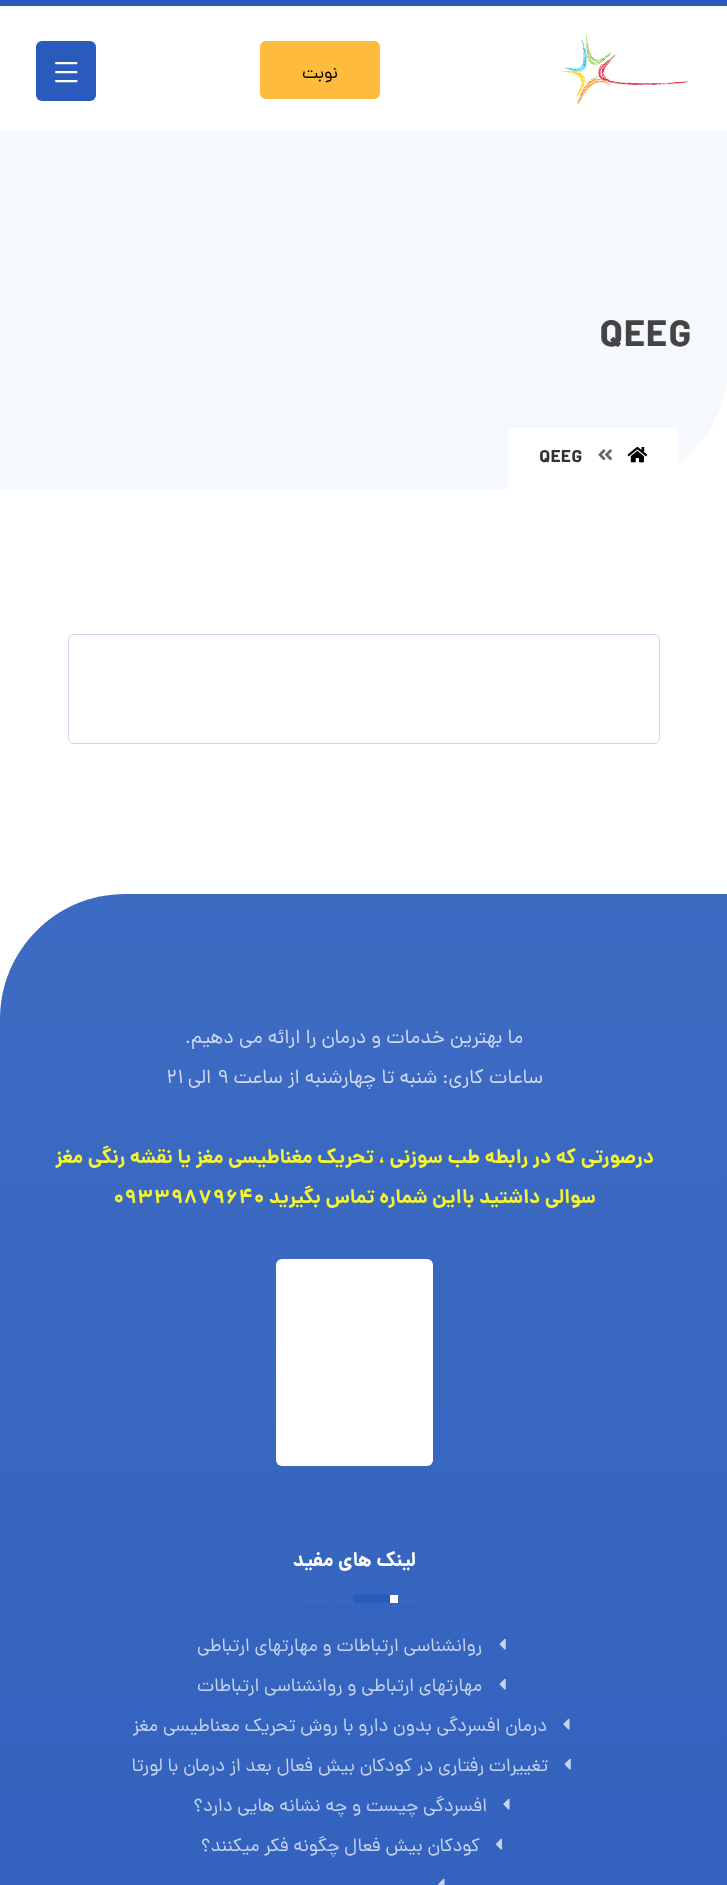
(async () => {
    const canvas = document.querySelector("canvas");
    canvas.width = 727;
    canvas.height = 1885;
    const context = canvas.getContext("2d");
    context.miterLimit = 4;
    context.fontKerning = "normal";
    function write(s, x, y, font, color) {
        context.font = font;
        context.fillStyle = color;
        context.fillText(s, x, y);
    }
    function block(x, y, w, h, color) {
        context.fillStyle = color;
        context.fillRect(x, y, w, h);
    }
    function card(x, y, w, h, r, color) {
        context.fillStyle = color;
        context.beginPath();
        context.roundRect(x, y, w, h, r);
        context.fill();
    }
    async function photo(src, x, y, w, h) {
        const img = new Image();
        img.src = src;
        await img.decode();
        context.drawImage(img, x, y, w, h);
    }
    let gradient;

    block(0, 0, 727, 1885, "rgb(255, 255, 255)");
    block(0, 0, 727, 6, "rgb(40, 91, 187)");
    await photo("media/1.png", 561, 34, 127, 70);
    card(260, 41, 120, 58, 6, "rgb(255, 187, 61)");
    context.direction = "rtl";
    write("نوبت", 338, 78, "17.5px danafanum", "rgb(0, 0, 0)");
    card(36, 41, 60, 60, 6, "rgb(40, 91, 187)");
    await photo("media/2.png", 55, 62, 23, 21);
    context.fillStyle = "rgb(245, 248, 252)";
    context.beginPath();
    context.moveTo(0, 131);
    context.lineTo(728, 131);
    context.lineTo(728, 364);
    context.bezierCurveTo(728, 433, 672, 489, 603, 489);
    context.lineTo(0, 489);
    context.closePath();
    context.fill();
    context.direction = "ltr";
    write("QEEG", 599, 346, "bold 37.5px danafanum", "rgb(68, 68, 68)");
    context.fillStyle = "rgb(255, 255, 255)";
    context.beginPath();
    context.roundRect(508, 428, 171, 61, [6, 6, 0, 0]);
    context.fill();
    await photo("media/3.png", 627, 447, 21, 16);
    await photo("media/4.png", 598, 449, 14, 12);
    write("QEEG", 539, 462, "bold 17.5px danafanum", "rgb(51, 51, 51)");
    context.beginPath();
    context.roundRect(68.5, 634.5, 591, 109, 5.5);
    context.strokeStyle = "rgb(203, 216, 239)";
    context.stroke();
    gradient = context.createLinearGradient(364, 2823, 364, 894);
    gradient.addColorStop(0, "rgb(40, 91, 187)");
    gradient.addColorStop(1, "rgb(62, 107, 194)");
    context.fillStyle = gradient;
    context.beginPath();
    context.moveTo(125, 894);
    context.lineTo(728, 894);
    context.lineTo(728, 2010);
    context.lineTo(0, 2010);
    context.lineTo(0, 1019);
    context.bezierCurveTo(0, 950, 56, 894, 125, 894);
    context.closePath();
    context.fill();
    context.direction = "rtl";
    write("ما بهترین خدمات و درمان را ارائه می دهیم.", 523, 1043, "20px danafanum", "rgb(206, 218, 240)");
    write("ساعات کاری: شنبه تا چهارشنبه از ساعت", 543, 1083, "20px danafanum", "rgb(206, 218, 240)");
    context.direction = "ltr";
    write("9", 217, 1083, "20px danafanum", "rgb(206, 218, 240)");
    context.direction = "rtl";
    write("الی", 211, 1083, "20px danafanum", "rgb(206, 218, 240)");
    context.direction = "ltr";
    write("21", 166, 1083, "20px danafanum", "rgb(206, 218, 240)");
    context.direction = "rtl";
    write("درصورتی که در رابطه طب سوزنی ، تحریک مغناطیسی مغز یا نقشه رنگی مغز", 654, 1163, "bold 20px danafanum", "rgb(244, 244, 53)");
    write("سوالی داشتید بااین شماره تماس بگیرید", 596, 1203, "bold 20px danafanum", "rgb(244, 244, 53)");
    context.direction = "ltr";
    write("09339879640", 113, 1203, "bold 20px danafanum", "rgb(244, 244, 53)");
    card(276, 1259, 157, 207, 6, "rgb(255, 255, 255)");
    context.beginPath();
    context.moveTo(292.5, 1602);
    context.lineTo(416, 1602);
    context.strokeStyle = "rgb(77, 114, 186)";
    context.lineWidth = 1.2;
    context.setLineDash([3.75, 2.56]);
    context.stroke();
    context.direction = "rtl";
    write("لینک های مفید", 416, 1566, "bold 20px danafanum", "rgb(255, 255, 255)");
    block(390, 1595, 8, 8, "rgb(255, 255, 255)");
    block(353, 1595, 37, 8, "rgb(40, 91, 187)");
    await photo("media/5.png", 499, 1638, 7, 12);
    write("روانشناسی ارتباطات و مهارتهای ارتباطی", 482, 1651, "18.75px danafanum", "rgb(198, 212, 237)");
    await photo("media/6.png", 499, 1678, 7, 12);
    write("مهارتهای ارتباطی و روانشناسی ارتباطات", 482, 1691, "18.75px danafanum", "rgb(198, 212, 237)");
    await photo("media/7.png", 563, 1718, 7, 12);
    write("درمان افسردگی بدون دارو با روش تحریک معناطیسی مغز", 547, 1731, "18.75px danafanum", "rgb(198, 212, 237)");
    await photo("media/8.png", 564, 1758, 7, 12);
    write("تغییرات رفتاری در کودکان بیش فعال بعد از درمان با لورتا", 548, 1771, "18.75px danafanum", "rgb(198, 212, 237)");
    await photo("media/9.png", 503, 1798, 7, 12);
    write("افسردگی چیست و چه نشانه هایی دارد؟", 487, 1811, "18.75px danafanum", "rgb(198, 212, 237)");
    await photo("media/10.png", 495, 1838, 8, 12);
    write("کودکان بیش فعال چگونه فکر میکنند؟", 480, 1851, "18.75px danafanum", "rgb(198, 212, 237)");
    await photo("media/11.png", 438, 1878, 7, 7);
})();
